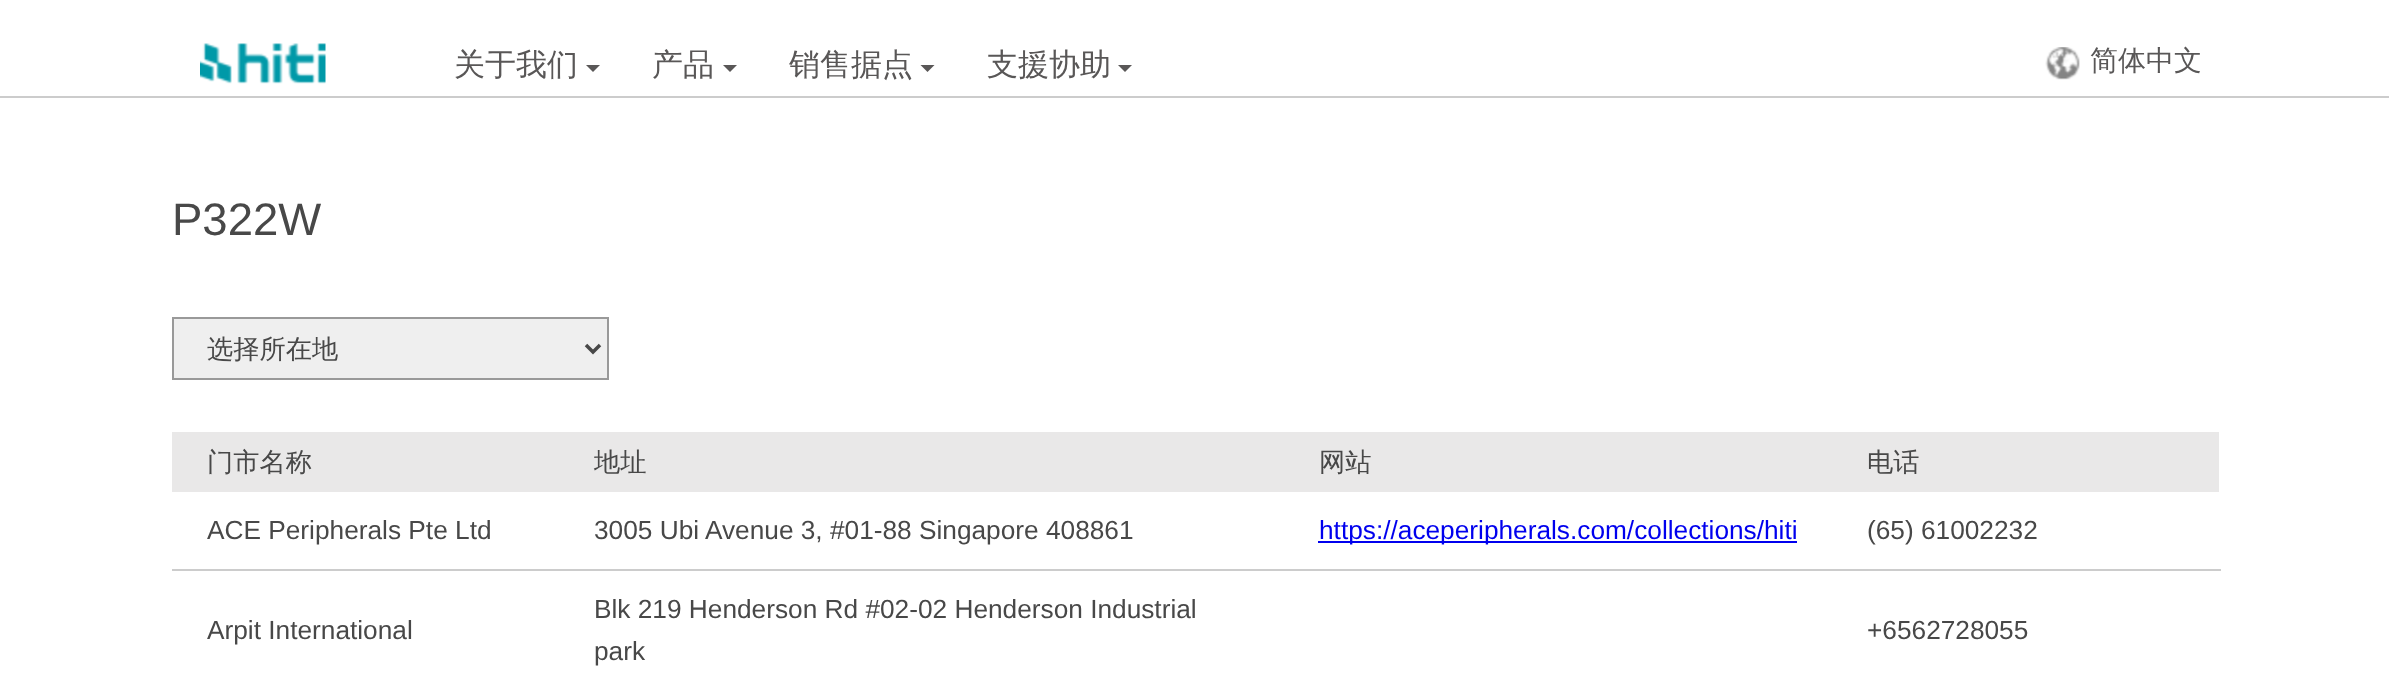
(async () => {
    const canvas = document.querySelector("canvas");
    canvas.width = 2389;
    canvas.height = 680;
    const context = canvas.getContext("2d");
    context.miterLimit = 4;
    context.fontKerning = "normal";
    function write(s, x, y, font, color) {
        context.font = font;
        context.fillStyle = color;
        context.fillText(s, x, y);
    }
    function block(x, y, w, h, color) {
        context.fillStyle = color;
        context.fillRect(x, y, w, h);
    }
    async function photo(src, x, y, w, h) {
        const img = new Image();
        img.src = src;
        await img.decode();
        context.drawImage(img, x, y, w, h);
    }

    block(0, 0, 2389, 680, "rgb(255, 255, 255)");
    block(0, 96, 2389, 2, "rgb(204, 204, 204)");
    await photo("media/1.png", 200, 43, 126, 41);
    write("关于我们", 454, 75, "500 31px WenQuanYi Zen Hei", "rgb(89, 87, 87)");
    context.beginPath();
    context.moveTo(586, 65);
    context.lineTo(600, 65);
    context.lineTo(593, 72);
    context.closePath();
    context.fill();
    write("产品", 652, 75, "500 31px WenQuanYi Zen Hei", "rgb(89, 87, 87)");
    context.beginPath();
    context.moveTo(723, 65);
    context.lineTo(737, 65);
    context.lineTo(730, 72);
    context.closePath();
    context.fill();
    write("销售据点", 789, 75, "500 31px WenQuanYi Zen Hei", "rgb(89, 87, 87)");
    context.beginPath();
    context.moveTo(920.5, 65);
    context.lineTo(934.5, 65);
    context.lineTo(927.5, 72);
    context.closePath();
    context.fill();
    write("支援协助", 987, 75, "500 31px WenQuanYi Zen Hei", "rgb(89, 87, 87)");
    context.beginPath();
    context.moveTo(1118, 65);
    context.lineTo(1132, 65);
    context.lineTo(1125, 72);
    context.closePath();
    context.fill();
    await photo("media/2.png", 2045, 47, 35, 33);
    write("简体中文", 2090, 70, "500 28px WenQuanYi Zen Hei", "rgb(89, 87, 87)");
    write("P322W", 172, 235, "45.5px Liberation Sans", "rgb(72, 72, 72)");
    context.fillStyle = "rgb(239, 239, 239)";
    context.beginPath();
    context.rect(173, 318, 435, 61);
    context.fill();
    context.strokeStyle = "rgb(153, 153, 153)";
    context.lineWidth = 2;
    context.stroke();
    context.beginPath();
    context.moveTo(586, 345);
    context.lineTo(593, 352);
    context.lineTo(600, 345);
    context.strokeStyle = "rgb(72, 72, 72)";
    context.lineWidth = 3.5;
    context.stroke();
    write("选择所在地", 207, 358, "500 26.25px WenQuanYi Zen Hei", "rgb(72, 72, 72)");
    block(172, 432, 2047, 60, "rgb(233, 232, 232)");
    write("门市名称", 207, 471, "500 26.25px WenQuanYi Zen Hei", "rgb(72, 72, 72)");
    write("地址", 594, 471, "500 26.25px WenQuanYi Zen Hei", "rgb(72, 72, 72)");
    write("网站", 1319, 471, "500 26.25px WenQuanYi Zen Hei", "rgb(72, 72, 72)");
    write("电话", 1867, 471, "500 26.25px WenQuanYi Zen Hei", "rgb(72, 72, 72)");
    write("ACE Peripherals Pte Ltd", 207, 539, "26.25px Liberation Sans", "rgb(72, 72, 72)");
    write("3005 Ubi Avenue 3, #01-88 Singapore 408861", 594, 539, "26.25px Liberation Sans", "rgb(72, 72, 72)");
    block(1318, 541, 479, 2, "rgb(0, 0, 238)");
    write("https://aceperipherals.com/collections/hiti", 1319, 539, "26.25px Liberation Sans", "rgb(0, 0, 238)");
    block(172, 569, 2049, 2, "rgb(204, 204, 204)");
    write("(65) 61002232", 1867, 539, "26.25px Liberation Sans", "rgb(72, 72, 72)");
    write("Arpit International", 207, 639, "26.25px Liberation Sans", "rgb(72, 72, 72)");
    write("Blk 219 Henderson Rd #02-02 Henderson Industrial", 594, 618, "26.25px Liberation Sans", "rgb(72, 72, 72)");
    write("park", 594, 660, "26.25px Liberation Sans", "rgb(72, 72, 72)");
    write("+6562728055", 1867, 639, "26.25px Liberation Sans", "rgb(72, 72, 72)");
})();
